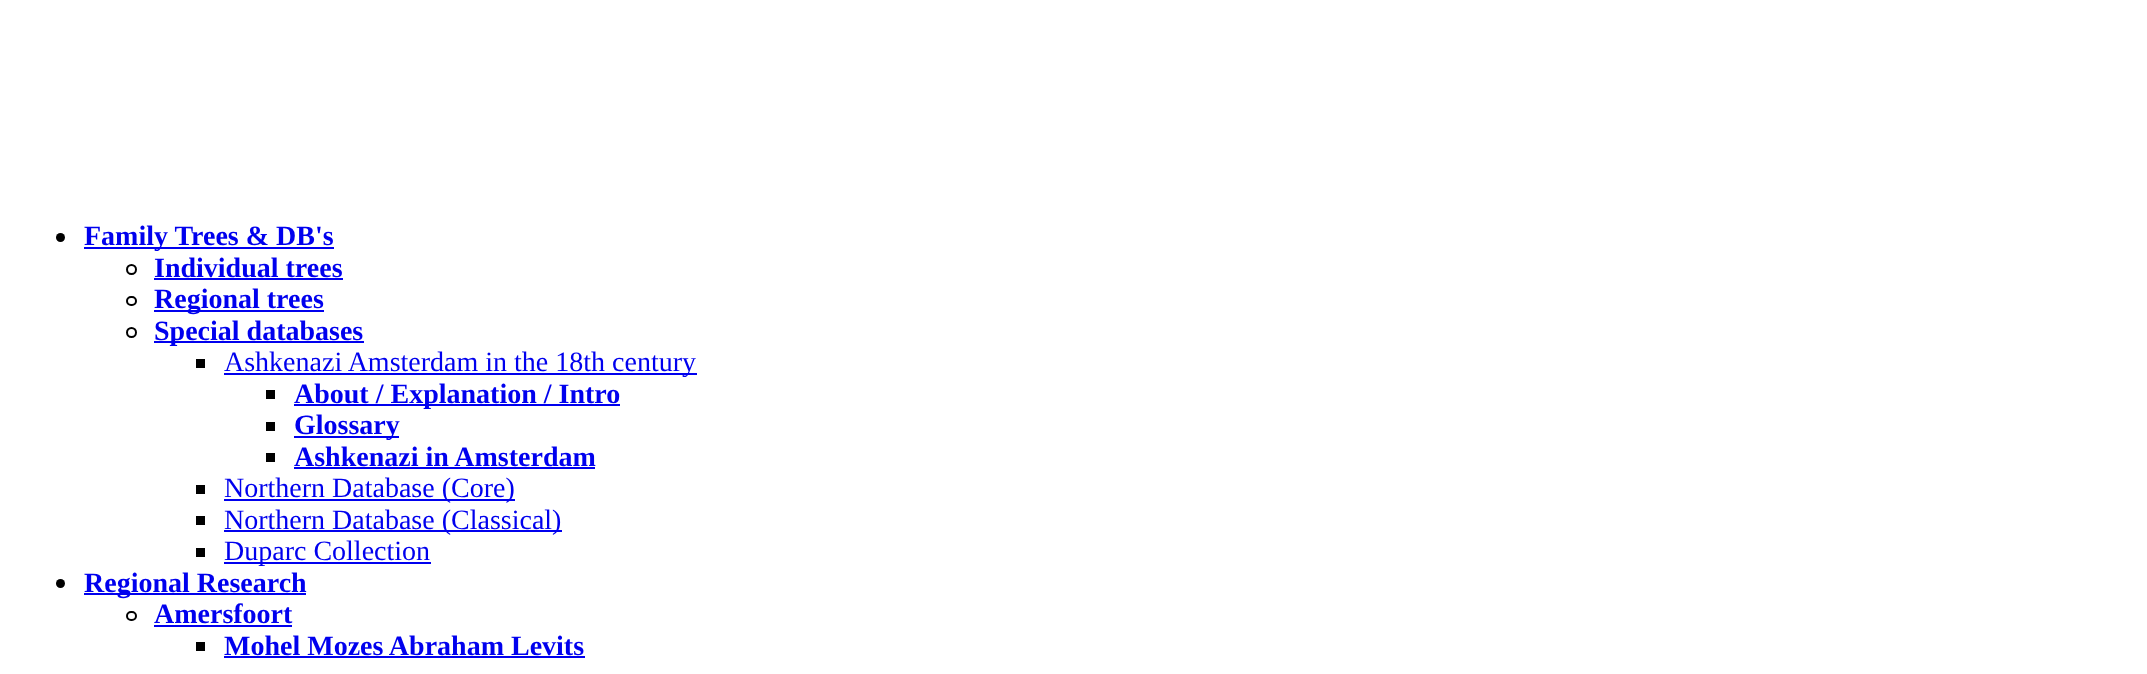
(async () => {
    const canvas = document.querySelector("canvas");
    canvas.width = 2147;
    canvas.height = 674;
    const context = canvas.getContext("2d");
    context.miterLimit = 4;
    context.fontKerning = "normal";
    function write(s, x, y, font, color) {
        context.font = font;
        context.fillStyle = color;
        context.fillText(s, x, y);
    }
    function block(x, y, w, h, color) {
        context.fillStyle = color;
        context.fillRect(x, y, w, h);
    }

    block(0, 0, 2147, 674, "rgb(255, 255, 255)");
    context.fillStyle = "rgb(0, 0, 0)";
    context.beginPath();
    context.arc(60.5, 237.5, 4.5, 0, Math.PI * 2);
    context.fill();
    block(84, 247, 250, 2, "rgb(0, 0, 238)");
    write("Family Trees & DB's", 84, 245, "bold 28px Liberation Serif", "rgb(0, 0, 238)");
    context.beginPath();
    context.arc(131.5, 269.5, 4.5, 0, Math.PI * 2);
    context.strokeStyle = "rgb(0, 0, 0)";
    context.lineWidth = 2;
    context.stroke();
    write("Individual trees", 154, 277, "bold 28px Liberation Serif", "rgb(0, 0, 238)");
    block(154, 278, 189, 2, "rgb(0, 0, 238)");
    context.beginPath();
    context.roundRect(127, 297, 9, 8, 4);
    context.stroke();
    block(154, 310, 170, 2, "rgb(0, 0, 238)");
    write("Regional trees", 154, 308, "bold 28px Liberation Serif", "rgb(0, 0, 238)");
    context.beginPath();
    context.arc(131.5, 332.5, 4.5, 0, Math.PI * 2);
    context.stroke();
    block(154, 341, 210, 2, "rgb(0, 0, 238)");
    write("Special databases", 154, 340, "bold 28px Liberation Serif", "rgb(0, 0, 238)");
    block(196, 359, 9, 9, "rgb(0, 0, 0)");
    block(224, 373, 473, 2, "rgb(0, 0, 238)");
    write("Ashkenazi Amsterdam in the 18th century", 224, 371, "28px Liberation Serif", "rgb(0, 0, 238)");
    block(266, 390, 9, 9, "rgb(0, 0, 0)");
    block(294, 404, 326, 2, "rgb(0, 0, 238)");
    write("About / Explanation / Intro", 294, 403, "bold 28px Liberation Serif", "rgb(0, 0, 238)");
    block(266, 422, 9, 9, "rgb(0, 0, 0)");
    block(294, 436, 105, 2, "rgb(0, 0, 238)");
    write("Glossary", 294, 434, "bold 28px Liberation Serif", "rgb(0, 0, 238)");
    block(266, 453, 9, 9, "rgb(0, 0, 0)");
    write("Ashkenazi in Amsterdam", 294, 466, "bold 28px Liberation Serif", "rgb(0, 0, 238)");
    block(294, 467, 301, 2, "rgb(0, 0, 238)");
    block(196, 485, 9, 9, "rgb(0, 0, 0)");
    block(224, 499, 291, 2, "rgb(0, 0, 238)");
    write("Northern Database (Core)", 224, 497, "28px Liberation Serif", "rgb(0, 0, 238)");
    block(196, 516, 9, 9, "rgb(0, 0, 0)");
    block(224, 530, 338, 2, "rgb(0, 0, 238)");
    write("Northern Database (Classical)", 224, 529, "28px Liberation Serif", "rgb(0, 0, 238)");
    block(196, 548, 9, 9, "rgb(0, 0, 0)");
    block(224, 562, 207, 2, "rgb(0, 0, 238)");
    write("Duparc Collection", 224, 560, "28px Liberation Serif", "rgb(0, 0, 238)");
    context.fillStyle = "rgb(0, 0, 0)";
    context.beginPath();
    context.arc(60.5, 583.5, 4.5, 0, Math.PI * 2);
    context.fill();
    block(84, 593, 222, 2, "rgb(0, 0, 238)");
    write("Regional Research", 84, 592, "bold 28px Liberation Serif", "rgb(0, 0, 238)");
    context.beginPath();
    context.roundRect(127, 612, 9, 8, 4);
    context.stroke();
    write("Amersfoort", 154, 623, "bold 28px Liberation Serif", "rgb(0, 0, 238)");
    block(154, 625, 138, 2, "rgb(0, 0, 238)");
    block(196, 642, 9, 9, "rgb(0, 0, 0)");
    write("Mohel Mozes Abraham Levits", 224, 655, "bold 28px Liberation Serif", "rgb(0, 0, 238)");
    block(224, 656, 361, 2, "rgb(0, 0, 238)");
})();
